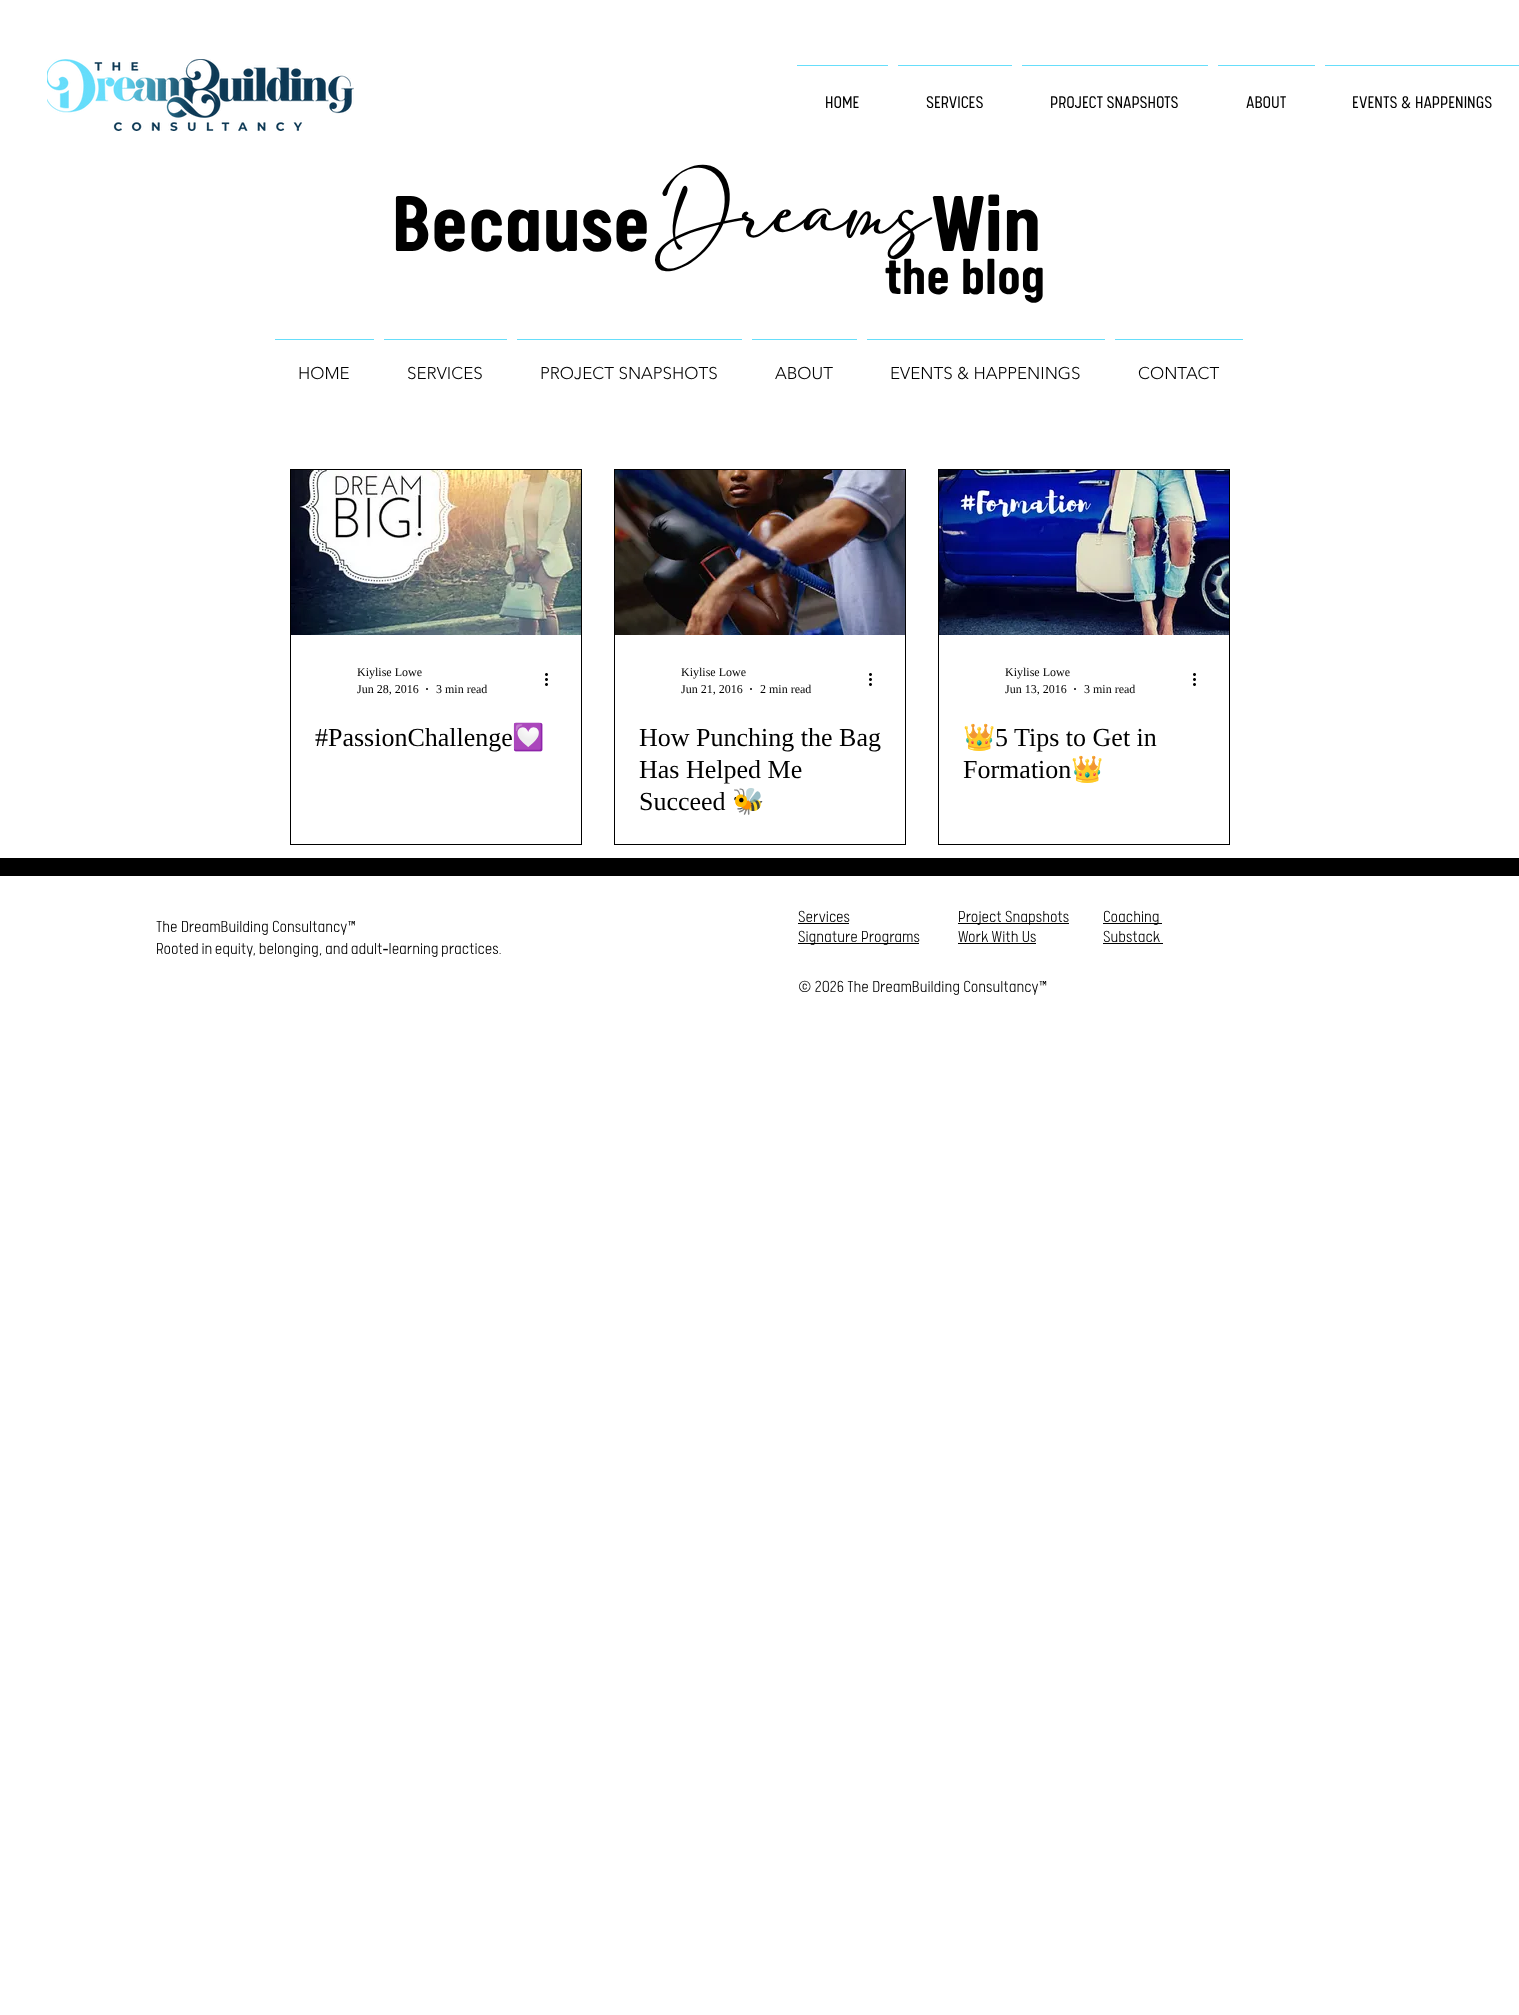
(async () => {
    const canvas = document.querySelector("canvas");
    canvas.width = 1519;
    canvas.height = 2015;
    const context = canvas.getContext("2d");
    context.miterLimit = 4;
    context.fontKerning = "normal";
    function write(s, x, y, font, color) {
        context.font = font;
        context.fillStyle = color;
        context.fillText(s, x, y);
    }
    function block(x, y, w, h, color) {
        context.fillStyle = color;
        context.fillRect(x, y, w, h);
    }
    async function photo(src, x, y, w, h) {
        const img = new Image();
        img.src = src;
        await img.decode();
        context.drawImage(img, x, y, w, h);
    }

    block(0, 0, 1519, 2015, "rgb(255, 255, 255)");
    await photo("media/1.png", 47, 59, 307, 72);
    block(797, 65, 91, 1, "rgb(102, 222, 251)");
    write("HOME", 825, 108, "300 19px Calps", "rgb(0, 0, 0)");
    block(898, 65, 114, 1, "rgb(102, 222, 251)");
    write("SERVICES", 926, 108, "300 19px Calps", "rgb(0, 0, 0)");
    block(1022, 65, 186, 1, "rgb(102, 222, 251)");
    write("PROJECT SNAPSHOTS", 1050, 108, "300 19px Calps", "rgb(0, 0, 0)");
    block(1218, 65, 97, 1, "rgb(102, 222, 251)");
    write("ABOUT", 1246, 108, "300 19px Calps", "rgb(0, 0, 0)");
    block(1325, 65, 194, 1, "rgb(102, 222, 251)");
    write("EVENTS & HAPPENINGS", 1352, 108, "300 19px Calps", "rgb(0, 0, 0)");
    write("Because", 392, 251, "bold 89px Calps", "rgb(0, 0, 0)");
    write("Win", 932, 251, "bold 89px Calps", "rgb(0, 0, 0)");
    write("Dreams", 655, 235, "57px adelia", "rgb(0, 0, 0)");
    write("the blog", 885, 294, "bold 57px Calps", "rgb(0, 0, 0)");
    block(275, 339, 99, 1, "rgb(102, 222, 251)");
    write("HOME", 298, 379, "300 17px 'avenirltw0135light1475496'", "rgb(0, 0, 0)");
    block(384, 339, 123, 1, "rgb(102, 222, 251)");
    write("SERVICES", 407, 379, "300 17px 'avenirltw0135light1475496'", "rgb(0, 0, 0)");
    block(517, 339, 225, 1, "rgb(102, 222, 251)");
    write("PROJECT SNAPSHOTS", 540, 379, "300 17px 'avenirltw0135light1475496'", "rgb(0, 0, 0)");
    block(752, 339, 105, 1, "rgb(102, 222, 251)");
    write("ABOUT", 775, 379, "300 17px 'avenirltw0135light1475496'", "rgb(0, 0, 0)");
    block(867, 339, 238, 1, "rgb(102, 222, 251)");
    write("EVENTS & HAPPENINGS", 890, 379, "300 17px 'avenirltw0135light1475496'", "rgb(0, 0, 0)");
    block(1115, 339, 128, 1, "rgb(102, 222, 251)");
    write("CONTACT", 1138, 379, "300 17px 'avenirltw0135light1475496'", "rgb(0, 0, 0)");
    context.strokeStyle = "rgb(0, 0, 0)";
    context.strokeRect(290.5, 469.5, 291, 375);
    await photo("media/2.png", 291, 470, 290, 165);
    write("Kiylise Lowe", 357, 676, "12px Liberation Serif", "rgb(0, 0, 0)");
    write("Jun 28, 2016", 357, 693, "12px Liberation Serif", "rgb(0, 0, 0)");
    context.beginPath();
    context.arc(427, 689, 1, 0, Math.PI * 2);
    context.fill();
    write("3 min read", 436, 693, "12px Liberation Serif", "rgb(0, 0, 0)");
    await photo("media/3.png", 545, 673, 3, 13);
    write("#PassionChallenge", 315, 746, "26px Liberation Serif", "rgb(0, 0, 0)");
    write("💟", 512, 746, "26px Noto Color Emoji", "rgb(0, 0, 0)");
    context.strokeRect(614.5, 469.5, 291, 375);
    await photo("media/4.png", 615, 470, 290, 165);
    write("Kiylise Lowe", 681, 676, "12px Liberation Serif", "rgb(0, 0, 0)");
    write("Jun 21, 2016", 681, 693, "12px Liberation Serif", "rgb(0, 0, 0)");
    context.beginPath();
    context.arc(751, 689, 1, 0, Math.PI * 2);
    context.fill();
    write("2 min read", 760, 693, "12px Liberation Serif", "rgb(0, 0, 0)");
    await photo("media/3.png", 869, 673, 3, 13);
    write("How Punching the Bag", 639, 746, "26px Liberation Serif", "rgb(0, 0, 0)");
    write("Has Helped Me", 639, 778, "26px Liberation Serif", "rgb(0, 0, 0)");
    write("Succeed", 639, 810, "26px Liberation Serif", "rgb(0, 0, 0)");
    write("🐝", 732, 810, "26px Noto Color Emoji", "rgb(0, 0, 0)");
    context.strokeRect(938.5, 469.5, 291, 375);
    await photo("media/5.png", 939, 470, 290, 165);
    write("Kiylise Lowe", 1005, 676, "12px Liberation Serif", "rgb(0, 0, 0)");
    write("Jun 13, 2016", 1005, 693, "12px Liberation Serif", "rgb(0, 0, 0)");
    context.beginPath();
    context.arc(1075, 689, 1, 0, Math.PI * 2);
    context.fill();
    write("3 min read", 1084, 693, "12px Liberation Serif", "rgb(0, 0, 0)");
    await photo("media/3.png", 1193, 673, 3, 13);
    context.save();
    context.beginPath();
    context.rect(963, 722, 242, 64);
    context.clip();
    write("👑", 963, 746, "26px Noto Color Emoji", "rgb(0, 0, 0)");
    context.restore();
    write("5 Tips to Get in", 995, 746, "26px Liberation Serif", "rgb(0, 0, 0)");
    write("Formation", 963, 778, "26px Liberation Serif", "rgb(0, 0, 0)");
    write("👑", 1071, 778, "26px Noto Color Emoji", "rgb(0, 0, 0)");
    block(0, 858, 1519, 18, "rgb(0, 0, 0)");
    write("The DreamBuilding Consultancy™", 156, 932, "300 18px 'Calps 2'", "rgb(0, 0, 0)");
    context.wordSpacing = "-0.75px";
    write("Rooted in equity, belonging, and adult‑learning practices.", 156, 954, "300 18px 'Calps 2'", "rgb(0, 0, 0)");
    context.wordSpacing = "0px";
    write("Services", 798, 922, "300 18px 'Calps 2'", "rgb(0, 0, 0)");
    block(798, 923, 51, 1, "rgb(0, 0, 0)");
    block(798, 943, 121, 1, "rgb(0, 0, 0)");
    write("Signature Programs", 798, 942, "300 18px 'Calps 2'", "rgb(0, 0, 0)");
    block(958, 923, 111, 1, "rgb(0, 0, 0)");
    write("Project Snapshots", 958, 922, "300 18px 'Calps 2'", "rgb(0, 0, 0)");
    write("Work With Us", 958, 942, "300 18px 'Calps 2'", "rgb(0, 0, 0)");
    block(958, 943, 78, 1, "rgb(0, 0, 0)");
    block(1103, 923, 59, 1, "rgb(0, 0, 0)");
    write("Coaching", 1103, 922, "300 18px 'Calps 2'", "rgb(0, 0, 0)");
    write("Substack", 1103, 942, "300 18px 'Calps 2'", "rgb(0, 0, 0)");
    block(1103, 943, 60, 1, "rgb(0, 0, 0)");
    write("© 2026 The DreamBuilding Consultancy™", 798, 992, "300 18px 'Calps 2'", "rgb(0, 0, 0)");
})();
